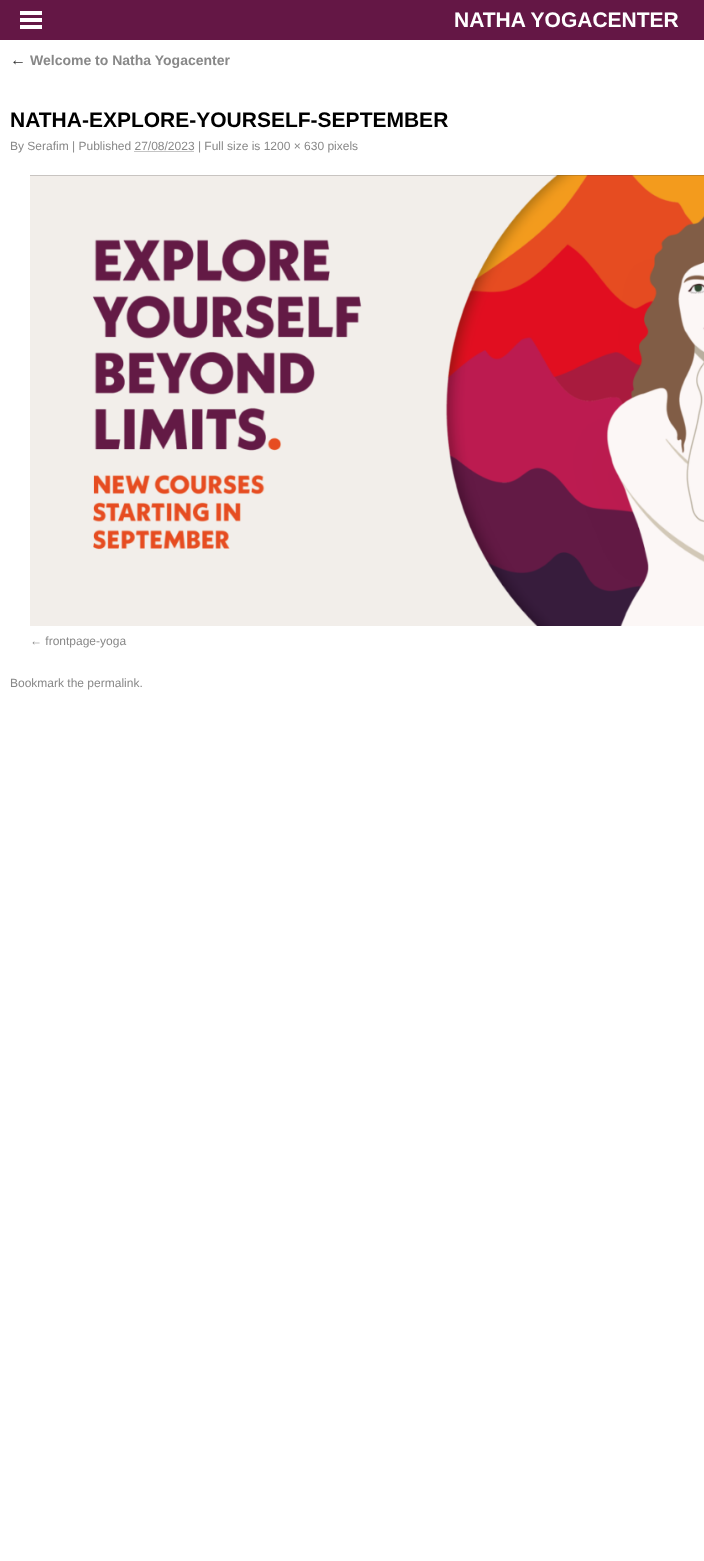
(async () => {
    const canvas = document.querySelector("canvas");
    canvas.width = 704;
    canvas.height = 1561;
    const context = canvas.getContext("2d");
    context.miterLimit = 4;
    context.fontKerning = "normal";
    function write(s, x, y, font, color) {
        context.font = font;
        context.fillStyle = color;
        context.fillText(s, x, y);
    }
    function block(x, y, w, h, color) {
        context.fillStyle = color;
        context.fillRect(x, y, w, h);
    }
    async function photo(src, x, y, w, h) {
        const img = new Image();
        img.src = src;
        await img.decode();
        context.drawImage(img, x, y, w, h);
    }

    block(0, 0, 704, 1561, "rgb(100, 23, 69)");
    await photo("media/1.png", 20, 11, 22, 18);
    write("NATHA YOGACENTER", 454, 27, "bold 21px Liberation Sans", "rgb(255, 255, 255)");
    block(0, 40, 704, 1521, "rgb(255, 255, 255)");
    write("←", 10, 65, "italic 16px Liberation Serif", "rgb(51, 51, 51)");
    write("Welcome to Natha Yogacenter", 30, 65, "bold 14px Liberation Sans", "rgb(136, 136, 136)");
    write("NATHA-EXPLORE-YOURSELF-SEPTEMBER", 10, 127, "bold 21px Liberation Sans", "rgb(0, 0, 0)");
    write("By Serafim | Published 27/08/2023 | Full size is 1200 × 630 pixels", 10, 150, "12px Liberation Sans", "rgb(136, 136, 136)");
    context.beginPath();
    context.moveTo(134.5, 151.5);
    context.lineTo(194.5, 151.5);
    context.strokeStyle = "rgb(136, 136, 136)";
    context.setLineDash([1, 1]);
    context.stroke();
    await photo("media/2.png", 30, 175, 674, 451);
    write("← frontpage-yoga", 30, 645, "12px Liberation Sans", "rgb(136, 136, 136)");
    write("Bookmark the permalink.", 10, 687, "12px Liberation Sans", "rgb(136, 136, 136)");
})();
